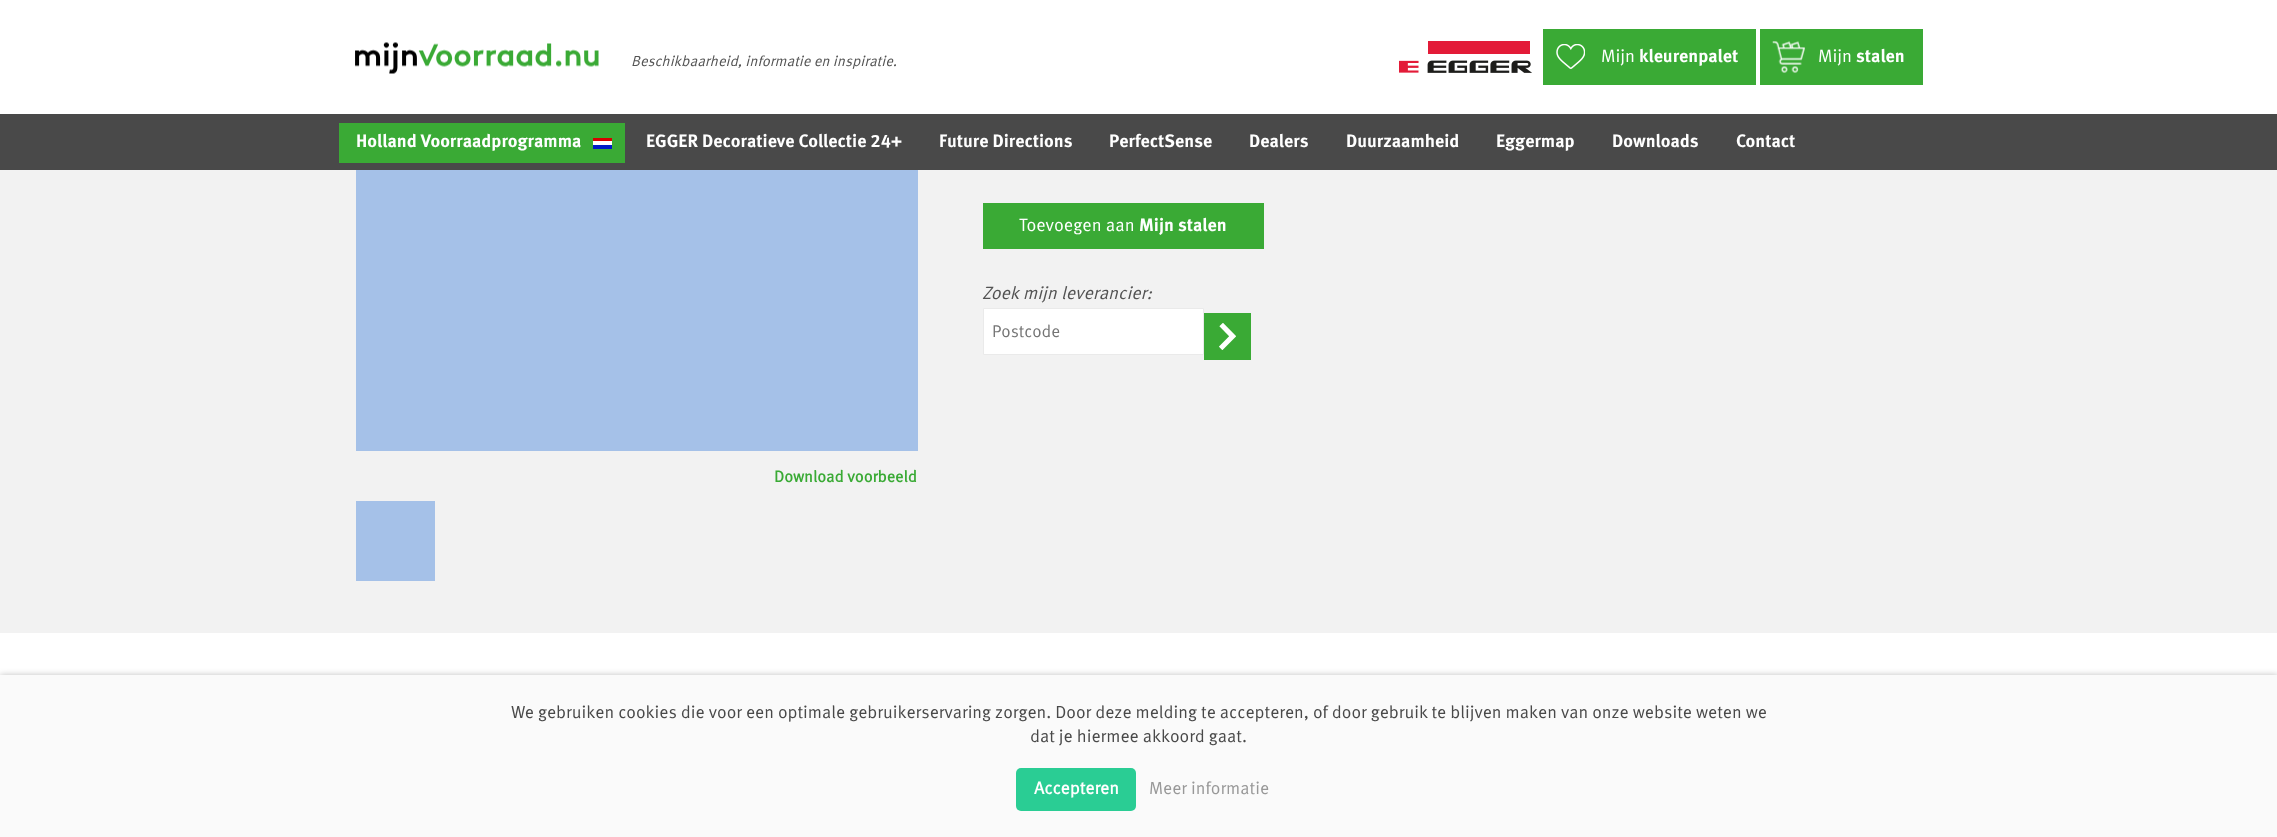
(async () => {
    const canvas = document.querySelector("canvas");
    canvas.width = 2277;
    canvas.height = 837;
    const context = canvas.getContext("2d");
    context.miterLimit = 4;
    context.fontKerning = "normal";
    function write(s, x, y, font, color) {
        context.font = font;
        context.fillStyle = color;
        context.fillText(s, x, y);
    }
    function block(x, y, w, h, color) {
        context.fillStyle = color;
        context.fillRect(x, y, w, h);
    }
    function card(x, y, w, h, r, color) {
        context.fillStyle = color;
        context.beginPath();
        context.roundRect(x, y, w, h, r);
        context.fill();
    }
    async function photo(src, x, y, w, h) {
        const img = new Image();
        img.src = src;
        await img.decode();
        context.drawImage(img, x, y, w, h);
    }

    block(0, 0, 2277, 837, "rgb(255, 255, 255)");
    await photo("media/1.png", 355, 42, 244, 32);
    write("Beschikbaarheid, informatie en inspiratie.", 631, 66, "italic 14.6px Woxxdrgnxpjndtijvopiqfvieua", "rgb(83, 83, 83)");
    await photo("media/2.png", 1399, 41, 133, 32);
    block(1543, 29, 213, 56, "rgb(58, 170, 53)");
    await photo("media/3.png", 1556, 44, 29, 25);
    write("Mijn", 1601, 62, "17.9px Woxxdrgnxpjndtijvopiqfvieua", "rgb(255, 255, 255)");
    write("kleurenpalet", 1639, 62, "bold 17.9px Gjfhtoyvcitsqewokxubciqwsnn", "rgb(255, 255, 255)");
    block(1760, 29, 163, 56, "rgb(58, 170, 53)");
    await photo("media/4.png", 1772, 41, 33, 32);
    write("Mijn", 1818, 62, "17.9px Woxxdrgnxpjndtijvopiqfvieua", "rgb(255, 255, 255)");
    write("stalen", 1856, 62, "bold 17.9px Gjfhtoyvcitsqewokxubciqwsnn", "rgb(255, 255, 255)");
    block(0, 114, 2277, 56, "rgb(73, 73, 73)");
    block(339, 123, 286, 40, "rgb(58, 170, 53)");
    block(593, 138, 19, 3, "rgb(215, 0, 0)");
    block(593, 141, 19, 4, "rgb(255, 255, 255)");
    block(593, 145, 19, 4, "rgb(0, 26, 199)");
    write("Holland Voorraadprogramma", 356, 147, "bold 17.9px Gjfhtoyvcitsqewokxubciqwsnn", "rgb(255, 255, 255)");
    write("EGGER Decoratieve Collectie 24+", 646, 147, "bold 17.9px Gjfhtoyvcitsqewokxubciqwsnn", "rgb(255, 255, 255)");
    write("Future Directions", 939, 147, "bold 17.9px Gjfhtoyvcitsqewokxubciqwsnn", "rgb(255, 255, 255)");
    write("PerfectSense", 1109, 147, "bold 17.9px Gjfhtoyvcitsqewokxubciqwsnn", "rgb(255, 255, 255)");
    write("Dealers", 1249, 147, "bold 17.9px Gjfhtoyvcitsqewokxubciqwsnn", "rgb(255, 255, 255)");
    write("Duurzaamheid", 1346, 147, "bold 17.9px Gjfhtoyvcitsqewokxubciqwsnn", "rgb(255, 255, 255)");
    write("Eggermap", 1496, 147, "bold 17.9px Gjfhtoyvcitsqewokxubciqwsnn", "rgb(255, 255, 255)");
    write("Downloads", 1612, 147, "bold 17.9px Gjfhtoyvcitsqewokxubciqwsnn", "rgb(255, 255, 255)");
    write("Contact", 1736, 147, "bold 17.9px Gjfhtoyvcitsqewokxubciqwsnn", "rgb(255, 255, 255)");
    block(0, 170, 2277, 463, "rgb(242, 242, 242)");
    block(983, 203, 281, 46, "rgb(58, 170, 53)");
    write("Toevoegen aan", 1019, 231, "17.9px Woxxdrgnxpjndtijvopiqfvieua", "rgb(255, 255, 255)");
    write("Mijn stalen", 1139, 231, "bold 17.9px Gjfhtoyvcitsqewokxubciqwsnn", "rgb(255, 255, 255)");
    write("Zoek mijn leverancier:", 982, 299, "italic 17.9px Woxxdrgnxpjndtijvopiqfvieua", "rgb(83, 83, 83)");
    context.fillStyle = "rgb(255, 255, 255)";
    context.beginPath();
    context.rect(983.5, 308.5, 220, 46);
    context.fill();
    context.strokeStyle = "rgb(234, 234, 234)";
    context.stroke();
    write("Postcode", 992, 337, "17px Woxxdrgnxpjndtijvopiqfvieua", "rgb(117, 117, 117)");
    block(1204, 313, 47, 47, "rgb(58, 170, 53)");
    await photo("media/5.png", 1219, 323, 17, 27);
    block(356, 170, 562, 281, "rgb(165, 193, 232)");
    write("Download voorbeeld", 774, 482, "bold 16px Woxxdrgnxpjndtijvopiqfvieua", "rgb(58, 170, 53)");
    block(356, 501, 79, 80, "rgb(165, 193, 232)");
    context.fillStyle = "rgba(0, 0, 0, 0.25)";
    context.filter = "blur(3px)";
    context.beginPath();
    context.rect(0, 675, 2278, 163);
    context.fill();
    context.filter = "none";
    block(0, 675, 2277, 162, "rgb(250, 250, 250)");
    write("We gebruiken cookies die voor een optimale gebruikerservaring zorgen. Door deze melding te accepteren, of door gebruik te blijven maken van onze website weten we", 511, 718, "17.5px Woxxdrgnxpjndtijvopiqfvieua", "rgb(73, 73, 73)");
    write("dat je hiermee akkoord gaat.", 1030, 742, "17.5px Woxxdrgnxpjndtijvopiqfvieua", "rgb(73, 73, 73)");
    card(1016, 768, 120, 43, 5, "rgb(42, 205, 148)");
    write("Accepteren", 1034, 794, "bold 17.5px Woxxdrgnxpjndtijvopiqfvieua", "rgb(255, 255, 255)");
    write("Meer informatie", 1149, 794, "17.5px Woxxdrgnxpjndtijvopiqfvieua", "rgb(152, 152, 152)");
})();
